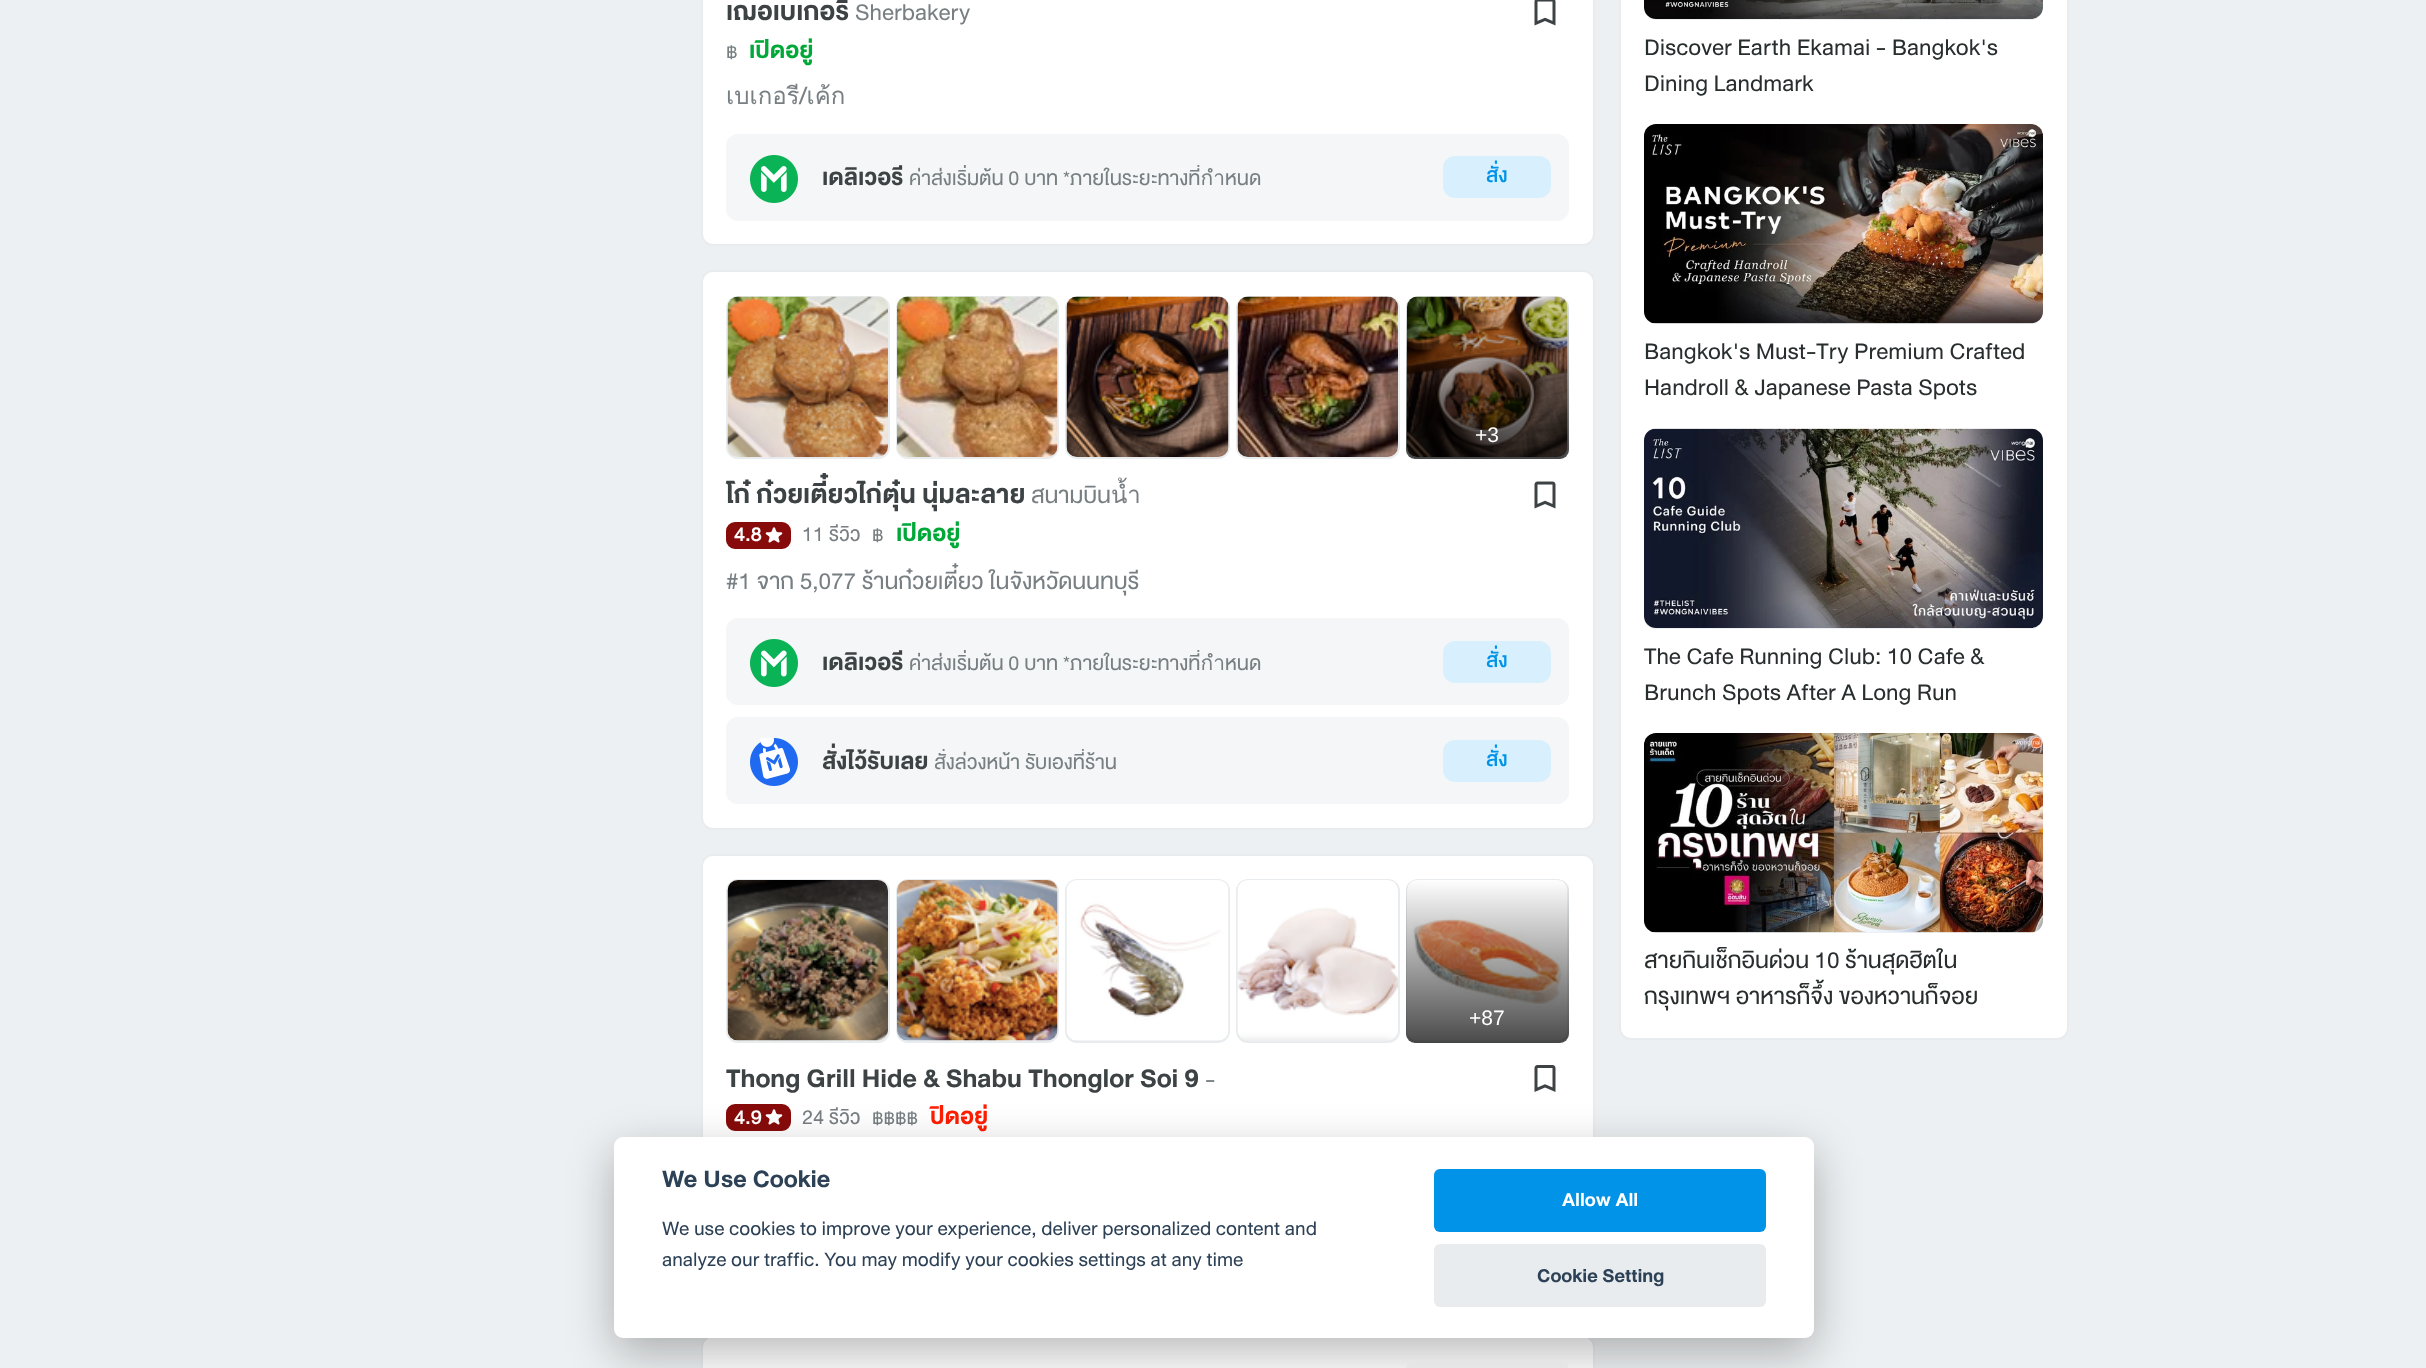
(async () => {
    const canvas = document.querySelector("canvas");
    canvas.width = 2426;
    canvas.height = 1368;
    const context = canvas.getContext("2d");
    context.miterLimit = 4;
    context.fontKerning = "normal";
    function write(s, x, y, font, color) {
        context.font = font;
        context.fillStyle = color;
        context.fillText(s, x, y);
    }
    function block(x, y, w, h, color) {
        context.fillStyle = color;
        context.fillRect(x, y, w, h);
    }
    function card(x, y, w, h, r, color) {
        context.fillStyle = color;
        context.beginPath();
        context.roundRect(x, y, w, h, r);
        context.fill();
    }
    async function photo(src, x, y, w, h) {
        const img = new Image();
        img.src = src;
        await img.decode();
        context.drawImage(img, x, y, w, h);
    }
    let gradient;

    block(0, 0, 2426, 1368, "rgb(237, 240, 242)");
    context.fillStyle = "rgb(255, 255, 255)";
    context.beginPath();
    context.roundRect(702, -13, 892, 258, 11);
    context.fill();
    context.strokeStyle = "rgb(233, 236, 238)";
    context.lineWidth = 2;
    context.stroke();
    write("เฌอเบเกอรี", 726, 20, "bold 27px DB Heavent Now", "rgb(61, 66, 69)");
    write("Sherbakery", 855, 20, "24px DB Heavent Now", "rgb(120, 127, 131)");
    await photo("media/1.png", 1534, 0, 22, 26);
    write("฿", 726, 58, "18px DB Heavent Now", "rgb(120, 127, 131)");
    write("เปิดอยู่", 749, 58, "bold 24px DB Heavent Now", "rgb(0, 168, 56)");
    write("เบเกอรี/เค้ก", 726, 104, "24px Loma", "rgb(120, 127, 131)");
    card(726, 134, 843, 87, 12, "rgb(244, 246, 247)");
    await photo("media/2.png", 750, 155, 48, 48);
    write("เดลิเวอรี", 822, 185, "bold 24px DB Heavent Now", "rgb(61, 66, 69)");
    context.save();
    context.beginPath();
    context.rect(909, 165, 470, 30);
    context.clip();
    write("ค่าส่งเริ่มต้น 0 บาท *ภายในระยะทางที่กำหนด", 909, 185, "21px DB Heavent Now", "rgb(120, 127, 131)");
    context.restore();
    card(1443, 156, 108, 42, 12, "rgb(216, 240, 253)");
    write("สั่ง", 1486, 182, "500 21px DB Heavent Now", "rgb(0, 147, 232)");
    context.fillStyle = "rgb(255, 255, 255)";
    context.beginPath();
    context.roundRect(702, 271, 892, 558, 11);
    context.fill();
    context.stroke();
    context.fillStyle = "rgb(237, 240, 242)";
    context.beginPath();
    context.roundRect(727, 297, 162, 161, 11);
    context.fill();
    context.stroke();
    await photo("media/3.png", 727, 296, 161, 161);
    context.beginPath();
    context.roundRect(897, 297, 161, 161, 11);
    context.fill();
    context.stroke();
    await photo("media/4.png", 897, 296, 161, 161);
    context.beginPath();
    context.roundRect(1066, 297, 163, 161, 11);
    context.fill();
    context.stroke();
    await photo("media/5.png", 1066, 296, 163, 161);
    context.beginPath();
    context.roundRect(1237, 297, 162, 161, 11);
    context.fill();
    context.stroke();
    await photo("media/6.png", 1237, 296, 161, 161);
    context.beginPath();
    context.roundRect(1407, 297, 161, 161, 11);
    context.fill();
    context.stroke();
    await photo("media/7.png", 1407, 296, 161, 161);
    gradient = context.createLinearGradient(1487, 296, 1487, 459);
    gradient.addColorStop(0, "rgba(0, 0, 0, 0)");
    gradient.addColorStop(0.99, "rgba(0, 0, 0, 0.7)");
    context.fillStyle = gradient;
    context.beginPath();
    context.roundRect(1406, 296, 163, 163, 9);
    context.fill();
    write("+3", 1475, 442, "21px Liberation Sans", "rgb(255, 255, 255)");
    write("โก๋ ก๋วยเตี๋ยวไก่ตุ๋น นุ่มละลาย", 726, 503, "bold 27px DB Heavent Now", "rgb(61, 66, 69)");
    write("สนามบินน้ำ", 1031, 503, "24px DB Heavent Now", "rgb(120, 127, 131)");
    await photo("media/8.png", 1534, 481, 22, 28);
    context.fillStyle = "rgb(136, 11, 11)";
    context.beginPath();
    context.roundRect(727, 523, 63, 25, 8);
    context.fill();
    context.strokeStyle = "rgb(136, 11, 11)";
    context.stroke();
    write("4.8", 734, 541, "500 21px DB Heavent Now", "rgb(255, 255, 255)");
    await photo("media/9.png", 765, 527, 18, 16);
    write("11 รีวิว", 802, 541, "21px DB Heavent Now", "rgb(120, 127, 131)");
    write("฿", 872, 541, "18px DB Heavent Now", "rgb(120, 127, 131)");
    write("เปิดอยู่", 896, 541, "bold 24px DB Heavent Now", "rgb(0, 168, 56)");
    write("#1 จาก 5,077 ร้านก๋วยเตี๋ยว ในจังหวัดนนทบุรี", 726, 589, "24px DB Heavent Now", "rgb(120, 127, 131)");
    card(726, 618, 843, 87, 12, "rgb(244, 246, 247)");
    await photo("media/10.png", 750, 639, 48, 48);
    write("เดลิเวอรี", 822, 670, "bold 24px DB Heavent Now", "rgb(61, 66, 69)");
    context.save();
    context.beginPath();
    context.rect(909, 650, 470, 30);
    context.clip();
    write("ค่าส่งเริ่มต้น 0 บาท *ภายในระยะทางที่กำหนด", 909, 670, "21px DB Heavent Now", "rgb(120, 127, 131)");
    context.restore();
    card(1443, 641, 108, 42, 12, "rgb(216, 240, 253)");
    write("สั่ง", 1486, 667, "500 21px DB Heavent Now", "rgb(0, 147, 232)");
    card(726, 717, 843, 87, 12, "rgb(244, 246, 247)");
    await photo("media/11.png", 750, 738, 48, 48);
    context.save();
    context.beginPath();
    context.rect(822, 729, 603, 63);
    context.clip();
    write("สั่งไว้รับเลย", 822, 769, "bold 24px DB Heavent Now", "rgb(61, 66, 69)");
    context.restore();
    context.save();
    context.beginPath();
    context.rect(935, 749, 444, 30);
    context.clip();
    write("สั่งล่วงหน้า รับเองที่ร้าน", 934, 769, "21px DB Heavent Now", "rgb(120, 127, 131)");
    context.restore();
    card(1443, 740, 108, 42, 12, "rgb(216, 240, 253)");
    write("สั่ง", 1486, 766, "500 21px DB Heavent Now", "rgb(0, 147, 232)");
    context.fillStyle = "rgb(255, 255, 255)";
    context.beginPath();
    context.roundRect(702, 855, 892, 455, 11);
    context.fill();
    context.strokeStyle = "rgb(233, 236, 238)";
    context.stroke();
    context.fillStyle = "rgb(237, 240, 242)";
    context.beginPath();
    context.roundRect(727, 880, 162, 162, 11);
    context.fill();
    context.stroke();
    await photo("media/12.png", 727, 880, 161, 161);
    context.beginPath();
    context.roundRect(897, 880, 161, 162, 11);
    context.fill();
    context.stroke();
    await photo("media/13.png", 897, 880, 161, 161);
    context.beginPath();
    context.roundRect(1066, 880, 163, 162, 11);
    context.fill();
    context.stroke();
    await photo("media/14.png", 1066, 880, 163, 161);
    context.beginPath();
    context.roundRect(1237, 880, 162, 162, 11);
    context.fill();
    context.stroke();
    await photo("media/15.png", 1237, 880, 161, 160);
    context.beginPath();
    context.roundRect(1407, 880, 161, 162, 11);
    context.fill();
    context.stroke();
    await photo("media/16.png", 1407, 880, 161, 161);
    gradient = context.createLinearGradient(1487, 879, 1487, 1043);
    gradient.addColorStop(0, "rgba(0, 0, 0, 0)");
    gradient.addColorStop(0.99, "rgba(0, 0, 0, 0.7)");
    context.fillStyle = gradient;
    context.beginPath();
    context.roundRect(1406, 879, 163, 164, 9);
    context.fill();
    write("+87", 1469, 1025, "21px Liberation Sans", "rgb(255, 255, 255)");
    write("Thong Grill Hide & Shabu Thonglor Soi 9", 726, 1087, "bold 27px DB Heavent Now", "rgb(61, 66, 69)");
    write("-", 1205, 1087, "24px DB Heavent Now", "rgb(120, 127, 131)");
    await photo("media/17.png", 1534, 1065, 22, 27);
    context.fillStyle = "rgb(136, 11, 11)";
    context.beginPath();
    context.roundRect(727, 1105, 63, 25, 8);
    context.fill();
    context.strokeStyle = "rgb(136, 11, 11)";
    context.stroke();
    write("4.9", 734, 1124, "500 21px DB Heavent Now", "rgb(255, 255, 255)");
    await photo("media/9.png", 765, 1109, 18, 16);
    write("24 รีวิว", 802, 1124, "21px DB Heavent Now", "rgb(120, 127, 131)");
    write("฿฿฿฿", 872, 1124, "18px DB Heavent Now", "rgb(120, 127, 131)");
    write("ปิดอยู่", 930, 1124, "bold 24px DB Heavent Now", "rgb(255, 29, 0)");
    context.fillStyle = "rgb(255, 255, 255)";
    context.beginPath();
    context.roundRect(702, 1336, 892, 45, 11);
    context.fill();
    context.strokeStyle = "rgb(233, 236, 238)";
    context.stroke();
    gradient = context.createLinearGradient(1487, 1361, 1487, 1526);
    gradient.addColorStop(0, "rgb(255, 255, 255)");
    gradient.addColorStop(0.99, "rgb(77, 77, 77)");
    context.fillStyle = gradient;
    context.beginPath();
    context.roundRect(1406, 1361, 163, 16, 9);
    context.fill();
    context.fillStyle = "rgb(255, 255, 255)";
    context.beginPath();
    context.roundRect(1620, -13, 448, 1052, 11);
    context.fill();
    context.stroke();
    card(1644, -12, 399, 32, 12, "rgb(237, 240, 242)");
    await photo("media/18.png", 1644, 0, 399, 19);
    write("Discover Earth Ekamai - Bangkok's", 1644, 55, "24px DB Heavent Now", "rgb(40, 45, 46)");
    write("Dining Landmark", 1644, 91, "24px DB Heavent Now", "rgb(40, 45, 46)");
    card(1644, 125, 399, 199, 12, "rgb(237, 240, 242)");
    await photo("media/19.png", 1644, 124, 399, 200);
    write("Bangkok's Must-Try Premium Crafted", 1644, 359, "24px DB Heavent Now", "rgb(40, 45, 46)");
    write("Handroll & Japanese Pasta Spots", 1644, 395, "24px DB Heavent Now", "rgb(40, 45, 46)");
    card(1644, 429, 399, 200, 12, "rgb(237, 240, 242)");
    await photo("media/20.png", 1644, 428, 399, 200);
    write("The Cafe Running Club: 10 Cafe &", 1644, 664, "24px DB Heavent Now", "rgb(40, 45, 46)");
    write("Brunch Spots After A Long Run", 1644, 700, "24px DB Heavent Now", "rgb(40, 45, 46)");
    card(1644, 734, 399, 199, 12, "rgb(237, 240, 242)");
    await photo("media/21.png", 1644, 733, 399, 200);
    write("สายกินเช็กอินด่วน 10 ร้านสุดฮิตใน", 1644, 968, "24px DB Heavent Now", "rgb(40, 45, 46)");
    write("กรุงเทพฯ อาหารก็จึ้ง ของหวานก็จอย", 1644, 1004, "24px DB Heavent Now", "rgb(40, 45, 46)");
    context.fillStyle = "rgba(2, 2, 3, 0.28)";
    context.filter = "blur(22.5px)";
    context.beginPath();
    context.roundRect(614, 1152, 1200, 201, 9);
    context.fill();
    context.filter = "none";
    card(614, 1137, 1200, 201, 9, "rgb(255, 255, 255)");
    write("We Use Cookie", 662, 1187, "bold 25.25px DB Heavent Now", "rgb(45, 65, 86)");
    write("We use cookies to improve your experience, deliver personalized content and", 662, 1235, "20.4px DB Heavent Now", "rgb(45, 65, 86)");
    write("analyze our traffic. You may modify your cookies settings at any time", 662, 1266, "20.4px DB Heavent Now", "rgb(45, 65, 86)");
    card(1434, 1169, 332, 63, 6, "rgb(0, 147, 232)");
    write("Allow All", 1562, 1206, "bold 19.75px DB Heavent Now", "rgb(255, 255, 255)");
    card(1434, 1244, 332, 63, 6, "rgb(233, 236, 238)");
    write("Cookie Setting", 1537, 1282, "bold 19.75px DB Heavent Now", "rgb(45, 65, 86)");
})();
